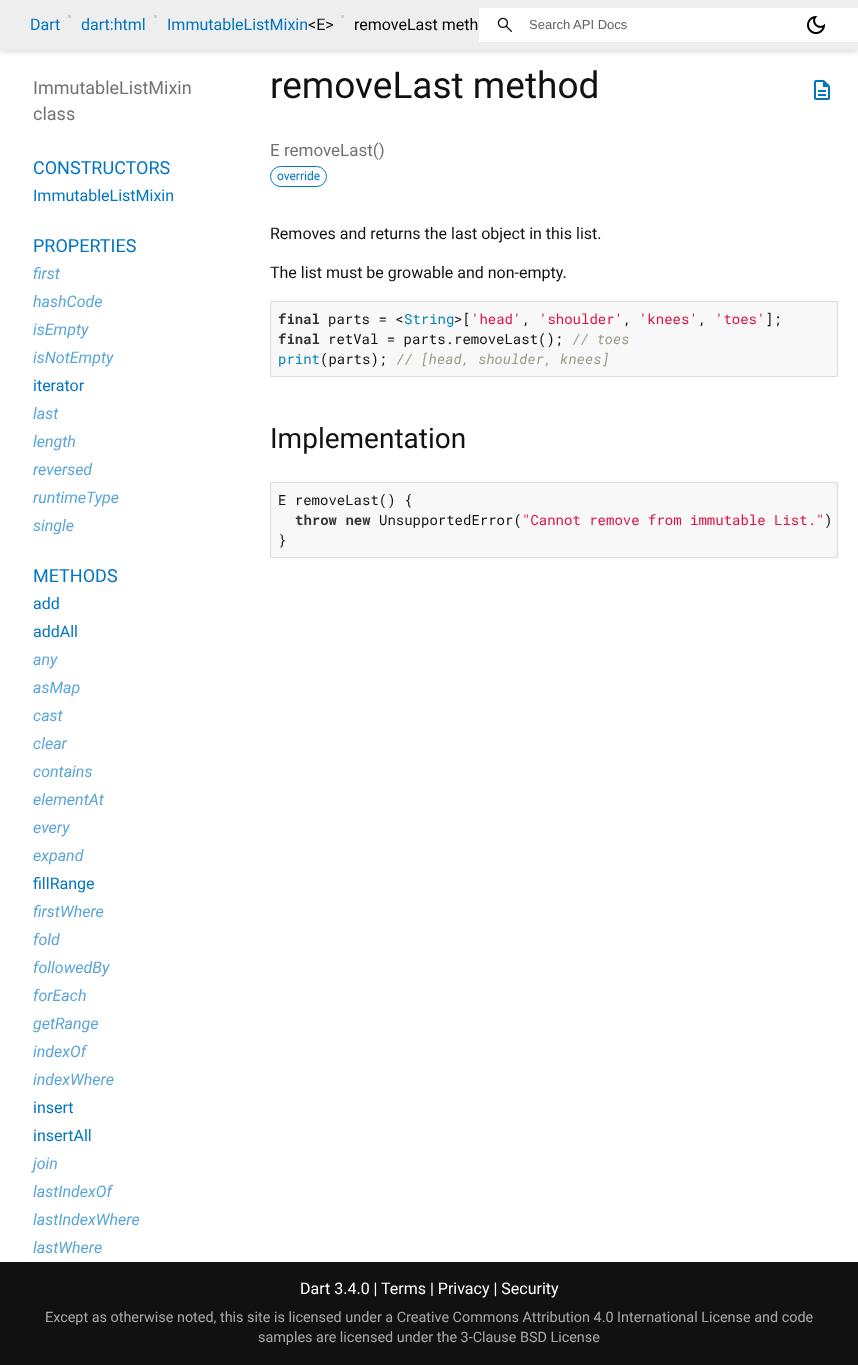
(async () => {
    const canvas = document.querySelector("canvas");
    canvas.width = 858;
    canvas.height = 1365;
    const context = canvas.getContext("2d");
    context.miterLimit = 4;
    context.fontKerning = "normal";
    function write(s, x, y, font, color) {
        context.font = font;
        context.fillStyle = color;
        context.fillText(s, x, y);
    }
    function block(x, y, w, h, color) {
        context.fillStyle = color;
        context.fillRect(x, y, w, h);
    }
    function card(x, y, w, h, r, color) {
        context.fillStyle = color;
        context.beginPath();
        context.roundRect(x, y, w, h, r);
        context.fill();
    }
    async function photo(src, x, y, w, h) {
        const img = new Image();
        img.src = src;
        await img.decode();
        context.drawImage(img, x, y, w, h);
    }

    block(0, 0, 858, 1365, "rgb(255, 255, 255)");
    context.fillStyle = "rgba(0, 0, 0, 0.1)";
    context.filter = "blur(2.5px)";
    context.beginPath();
    context.rect(0, 3, 858, 50);
    context.fill();
    context.filter = "none";
    block(0, 0, 858, 50, "rgb(238, 238, 238)");
    write("Dart", 30, 30, "16px Roboto", "rgb(1, 117, 194)");
    block(68, 15, 3, 3, "rgb(207, 207, 207)");
    write("dart:html", 81, 30, "16px Roboto", "rgb(1, 117, 194)");
    block(154, 15, 3, 3, "rgb(207, 207, 207)");
    write("ImmutableListMixin", 167, 30, "16px Roboto", "rgb(1, 117, 194)");
    write("<E>", 308, 30, "16px Roboto", "rgb(17, 17, 17)");
    block(341, 15, 3, 3, "rgb(207, 207, 207)");
    write("removeLast meth", 354, 30, "16px Roboto", "rgb(0, 0, 0)");
    block(479, 8, 379, 34, "rgb(255, 255, 255)");
    await photo("media/1.png", 497, 17, 16, 15);
    write("Search API Docs", 529, 29, "13px Liberation Sans", "rgb(99, 99, 99)");
    await photo("media/2.png", 807, 16, 18, 18);
    write("ImmutableListMixin", 33, 94, "18px Roboto", "rgb(114, 114, 114)");
    write("class", 33, 120, "18px Roboto", "rgb(114, 114, 114)");
    write("CONSTRUCTORS", 33, 174, "18px Roboto", "rgb(1, 117, 194)");
    write("ImmutableListMixin", 33, 201, "16px Roboto", "rgb(1, 117, 194)");
    write("PROPERTIES", 33, 252, "18px Roboto", "rgb(1, 117, 194)");
    write("first", 33, 279, "italic 16px Roboto", "rgb(90, 165, 215)");
    write("hashCode", 33, 307, "italic 16px Roboto", "rgb(90, 165, 215)");
    write("isEmpty", 33, 335, "italic 16px Roboto", "rgb(90, 165, 215)");
    write("isNotEmpty", 33, 363, "italic 16px Roboto", "rgb(90, 165, 215)");
    write("iterator", 33, 391, "16px Roboto", "rgb(1, 117, 194)");
    write("last", 33, 419, "italic 16px Roboto", "rgb(90, 165, 215)");
    write("length", 33, 447, "italic 16px Roboto", "rgb(90, 165, 215)");
    write("reversed", 33, 475, "italic 16px Roboto", "rgb(90, 165, 215)");
    write("runtimeType", 33, 503, "italic 16px Roboto", "rgb(90, 165, 215)");
    write("single", 33, 531, "italic 16px Roboto", "rgb(90, 165, 215)");
    write("METHODS", 33, 582, "18px Roboto", "rgb(1, 117, 194)");
    write("add", 33, 609, "16px Roboto", "rgb(1, 117, 194)");
    write("addAll", 33, 637, "16px Roboto", "rgb(1, 117, 194)");
    write("any", 33, 665, "italic 16px Roboto", "rgb(90, 165, 215)");
    write("asMap", 33, 693, "italic 16px Roboto", "rgb(90, 165, 215)");
    write("cast", 33, 721, "italic 16px Roboto", "rgb(90, 165, 215)");
    write("clear", 33, 749, "italic 16px Roboto", "rgb(90, 165, 215)");
    write("contains", 33, 777, "italic 16px Roboto", "rgb(90, 165, 215)");
    write("elementAt", 33, 805, "italic 16px Roboto", "rgb(90, 165, 215)");
    write("every", 33, 833, "italic 16px Roboto", "rgb(90, 165, 215)");
    write("expand", 33, 861, "italic 16px Roboto", "rgb(90, 165, 215)");
    write("fillRange", 33, 889, "16px Roboto", "rgb(1, 117, 194)");
    write("firstWhere", 33, 917, "italic 16px Roboto", "rgb(90, 165, 215)");
    write("fold", 33, 945, "italic 16px Roboto", "rgb(90, 165, 215)");
    write("followedBy", 33, 973, "italic 16px Roboto", "rgb(90, 165, 215)");
    write("forEach", 33, 1001, "italic 16px Roboto", "rgb(90, 165, 215)");
    write("getRange", 33, 1029, "italic 16px Roboto", "rgb(90, 165, 215)");
    write("indexOf", 33, 1057, "italic 16px Roboto", "rgb(90, 165, 215)");
    write("indexWhere", 33, 1085, "italic 16px Roboto", "rgb(90, 165, 215)");
    write("insert", 33, 1113, "16px Roboto", "rgb(1, 117, 194)");
    write("insertAll", 33, 1141, "16px Roboto", "rgb(1, 117, 194)");
    write("join", 33, 1169, "italic 16px Roboto", "rgb(90, 165, 215)");
    write("lastIndexOf", 33, 1197, "italic 16px Roboto", "rgb(90, 165, 215)");
    write("lastIndexWhere", 33, 1225, "italic 16px Roboto", "rgb(90, 165, 215)");
    write("lastWhere", 33, 1253, "italic 16px Roboto", "rgb(90, 165, 215)");
    write("removeLast method", 270, 98, "37px Roboto", "rgb(17, 17, 17)");
    await photo("media/3.png", 814, 80, 16, 20);
    write("E removeLast()", 270, 156, "17px Roboto", "rgb(114, 114, 114)");
    context.beginPath();
    context.roundRect(270.5, 166.5, 56, 20, 10);
    context.strokeStyle = "rgb(1, 117, 194)";
    context.stroke();
    write("override", 277, 180, "12px Roboto", "rgb(1, 117, 194)");
    write("Removes and returns the last object in this list.", 270, 239, "16px Roboto", "rgb(17, 17, 17)");
    write("The list must be growable and non-empty.", 270, 278, "16px Roboto", "rgb(17, 17, 17)");
    context.fillStyle = "rgb(238, 238, 238)";
    context.beginPath();
    context.rect(270.5, 301.5, 567, 75);
    context.fill();
    context.strokeStyle = "rgb(221, 221, 221)";
    context.stroke();
    card(271, 302, 566, 74, 3, "rgb(248, 248, 248)");
    write("final", 278, 324, "bold 14px Roboto Mono", "rgb(51, 51, 51)");
    write("parts = <", 328, 324, "14px Roboto Mono", "rgb(17, 17, 17)");
    write("String", 404, 324, "14px Roboto Mono", "rgb(0, 134, 179)");
    write(">[", 454, 324, "14px Roboto Mono", "rgb(17, 17, 17)");
    write("'head'", 471, 324, "14px Roboto Mono", "rgb(221, 17, 68)");
    write(",", 522, 324, "14px Roboto Mono", "rgb(17, 17, 17)");
    write("'shoulder'", 539, 324, "14px Roboto Mono", "rgb(221, 17, 68)");
    write(",", 623, 324, "14px Roboto Mono", "rgb(17, 17, 17)");
    write("'knees'", 639, 324, "14px Roboto Mono", "rgb(221, 17, 68)");
    write(",", 698, 324, "14px Roboto Mono", "rgb(17, 17, 17)");
    write("'toes'", 715, 324, "14px Roboto Mono", "rgb(221, 17, 68)");
    write("];", 765, 324, "14px Roboto Mono", "rgb(17, 17, 17)");
    write("final", 278, 344, "bold 14px Roboto Mono", "rgb(51, 51, 51)");
    write("retVal = parts.removeLast();", 328, 344, "14px Roboto Mono", "rgb(17, 17, 17)");
    write("// toes", 572, 344, "italic 14px Roboto Mono", "rgb(153, 153, 136)");
    write("print", 278, 364, "14px Roboto Mono", "rgb(0, 134, 179)");
    write("(parts);", 320, 364, "14px Roboto Mono", "rgb(17, 17, 17)");
    write("// [head, shoulder, knees]", 396, 364, "italic 14px Roboto Mono", "rgb(153, 153, 136)");
    write("Implementation", 270, 448, "28px Roboto", "rgb(17, 17, 17)");
    context.fillStyle = "rgb(238, 238, 238)";
    context.beginPath();
    context.rect(270.5, 482.5, 567, 75);
    context.fill();
    context.stroke();
    card(271, 483, 566, 74, 3, "rgb(248, 248, 248)");
    write("E removeLast() {", 278, 505, "14px Roboto Mono", "rgb(17, 17, 17)");
    write("throw new", 295, 525, "bold 14px Roboto Mono", "rgb(51, 51, 51)");
    write("UnsupportedError(", 379, 525, "14px Roboto Mono", "rgb(17, 17, 17)");
    write("\"Cannot remove from immutable List.\"", 522, 525, "14px Roboto Mono", "rgb(221, 17, 68)");
    write(")", 824, 525, "14px Roboto Mono", "rgb(17, 17, 17)");
    write("}", 278, 545, "14px Roboto Mono", "rgb(17, 17, 17)");
    block(0, 1262, 858, 103, "rgb(17, 17, 17)");
    write("Terms | Privacy | Security", 381, 1294, "16px Roboto", "rgb(255, 255, 255)");
    write("Except as otherwise noted, this site is licensed under a Creative Commons Attribution 4.0 International License and code", 45, 1322, "14.4px Roboto", "rgb(169, 169, 169)");
    write("samples are licensed under the 3-Clause BSD License", 258, 1342, "14.4px Roboto", "rgb(169, 169, 169)");
    write("Dart 3.4.0 |", 300, 1294, "16px Roboto", "rgb(255, 255, 255)");
})();
